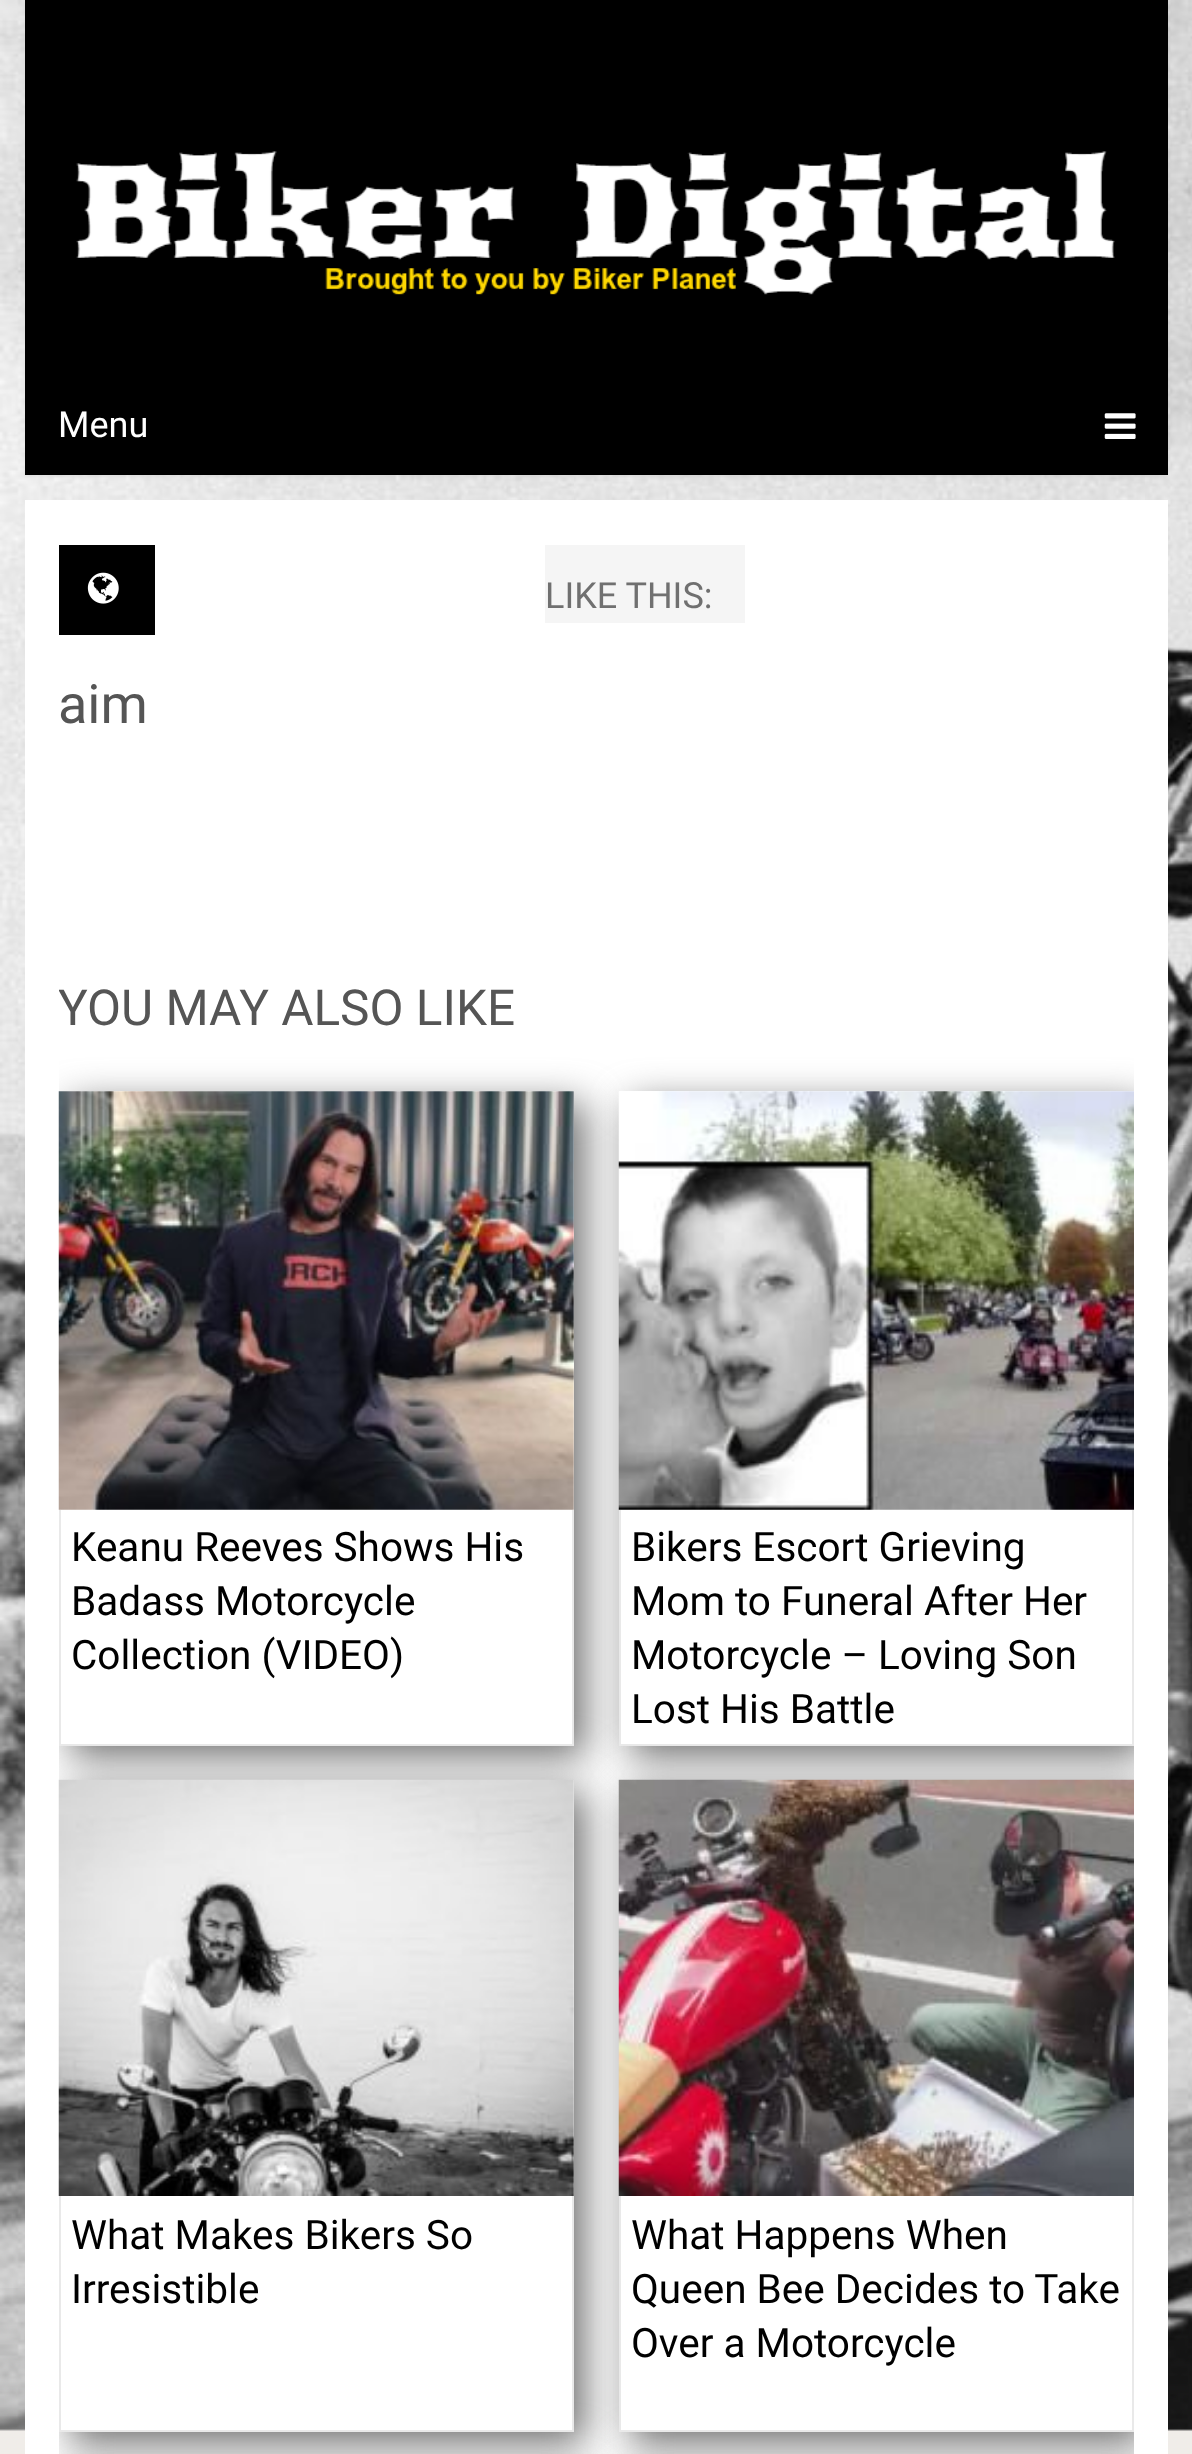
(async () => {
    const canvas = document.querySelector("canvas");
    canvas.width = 1192;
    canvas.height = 2454;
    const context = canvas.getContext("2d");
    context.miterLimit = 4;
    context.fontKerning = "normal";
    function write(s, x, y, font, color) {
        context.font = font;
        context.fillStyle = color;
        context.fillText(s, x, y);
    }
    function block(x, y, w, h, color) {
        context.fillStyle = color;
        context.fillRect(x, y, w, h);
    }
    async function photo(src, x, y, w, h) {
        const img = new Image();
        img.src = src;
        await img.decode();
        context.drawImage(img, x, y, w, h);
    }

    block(0, 0, 1192, 2454, "rgb(240, 237, 233)");
    await photo("media/1.png", 0, 0, 1192, 2431);
    context.fillStyle = "rgba(0, 0, 0, 0.05)";
    context.filter = "blur(2px)";
    context.beginPath();
    context.rect(25, 2, 1143, 475);
    context.fill();
    context.filter = "none";
    block(25, 0, 1143, 475, "rgb(0, 0, 0)");
    await photo("media/2.png", 76, 151, 1039, 144);
    write("Menu", 58, 437, "36px Roboto", "rgb(255, 255, 255)");
    await photo("media/3.png", 1104, 413, 32, 26);
    block(25, 500, 1143, 1954, "rgb(255, 255, 255)");
    block(59, 545, 96, 90, "rgb(0, 0, 0)");
    await photo("media/4.png", 87, 572, 32, 32);
    block(545, 545, 200, 78, "rgb(245, 245, 245)");
    write("LIKE THIS:", 545, 608, "36px Roboto", "rgb(112, 112, 112)");
    write("aim", 58, 723, "54px Roboto", "rgb(85, 85, 85)");
    context.save();
    context.beginPath();
    context.rect(59, 545, 1075, 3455);
    context.clip();
    write("YOU MAY ALSO LIKE", 58, 1025, "49.5px Roboto", "rgb(85, 85, 85)");
    context.restore();
    context.save();
    context.beginPath();
    context.rect(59, 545, 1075, 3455);
    context.clip();
    context.fillStyle = "rgb(112, 112, 112)";
    context.filter = "blur(19px)";
    context.beginPath();
    context.rect(70, 1103, 515, 654);
    context.fill();
    context.filter = "none";
    context.restore();
    block(59, 1091, 515, 653, "rgb(255, 255, 255)");
    context.save();
    context.beginPath();
    context.rect(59, 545, 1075, 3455);
    context.clip();
    context.fillStyle = "rgb(112, 112, 112)";
    context.filter = "blur(19px)";
    context.beginPath();
    context.rect(630, 1103, 515, 654);
    context.fill();
    context.filter = "none";
    context.restore();
    await photo("media/5.png", 58, 1091, 516, 419);
    block(619, 1091, 515, 653, "rgb(255, 255, 255)");
    context.save();
    context.beginPath();
    context.rect(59, 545, 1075, 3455);
    context.clip();
    context.fillStyle = "rgb(112, 112, 112)";
    context.filter = "blur(19px)";
    context.beginPath();
    context.rect(70, 1791, 515, 653);
    context.fill();
    context.filter = "none";
    context.restore();
    block(61, 1780, 513, 650, "rgb(255, 255, 255)");
    context.save();
    context.beginPath();
    context.rect(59, 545, 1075, 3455);
    context.clip();
    context.fillStyle = "rgb(112, 112, 112)";
    context.filter = "blur(19px)";
    context.beginPath();
    context.rect(630, 1791, 515, 653);
    context.fill();
    context.filter = "none";
    context.restore();
    block(572, 1510, 2, 236, "rgb(233, 233, 233)");
    block(59, 1744, 515, 2, "rgb(233, 233, 233)");
    block(59, 1510, 2, 236, "rgb(233, 233, 233)");
    write("Keanu Reeves Shows His", 71, 1561, "40.5px Roboto", "rgb(0, 0, 0)");
    write("Badass Motorcycle", 71, 1615, "40.5px Roboto", "rgb(0, 0, 0)");
    write("Collection (VIDEO)", 71, 1669, "40.5px Roboto", "rgb(0, 0, 0)");
    await photo("media/6.png", 618, 1091, 516, 419);
    block(1132, 1510, 2, 236, "rgb(233, 233, 233)");
    block(619, 1744, 515, 2, "rgb(233, 233, 233)");
    block(619, 1510, 2, 236, "rgb(233, 233, 233)");
    write("Bikers Escort Grieving", 631, 1561, "40.5px Roboto", "rgb(0, 0, 0)");
    write("Mom to Funeral After Her", 631, 1615, "40.5px Roboto", "rgb(0, 0, 0)");
    write("Motorcycle – Loving Son", 631, 1669, "40.5px Roboto", "rgb(0, 0, 0)");
    write("Lost His Battle", 631, 1723, "40.5px Roboto", "rgb(0, 0, 0)");
    await photo("media/7.png", 58, 1779, 516, 417);
    block(621, 2196, 511, 234, "rgb(255, 255, 255)");
    context.save();
    context.beginPath();
    context.rect(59, 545, 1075, 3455);
    context.clip();
    context.fillStyle = "rgb(112, 112, 112)";
    context.filter = "blur(19px)";
    context.beginPath();
    context.rect(70, 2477, 515, 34);
    context.fill();
    context.filter = "none";
    context.filter = "blur(19px)";
    context.beginPath();
    context.rect(630, 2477, 515, 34);
    context.fill();
    context.filter = "none";
    context.restore();
    block(572, 2196, 2, 236, "rgb(233, 233, 233)");
    block(59, 2430, 515, 2, "rgb(233, 233, 233)");
    block(59, 2196, 2, 236, "rgb(233, 233, 233)");
    write("What Makes Bikers So", 71, 2249, "40.5px Roboto", "rgb(0, 0, 0)");
    write("Irresistible", 71, 2303, "40.5px Roboto", "rgb(0, 0, 0)");
    await photo("media/8.png", 618, 1779, 516, 417);
    block(1132, 2196, 2, 236, "rgb(233, 233, 233)");
    block(619, 2430, 515, 2, "rgb(233, 233, 233)");
    block(619, 2196, 2, 236, "rgb(233, 233, 233)");
    write("What Happens When", 631, 2249, "40.5px Roboto", "rgb(0, 0, 0)");
    write("Queen Bee Decides to Take", 631, 2303, "40.5px Roboto", "rgb(0, 0, 0)");
    write("Over a Motorcycle", 631, 2357, "40.5px Roboto", "rgb(0, 0, 0)");
})();
